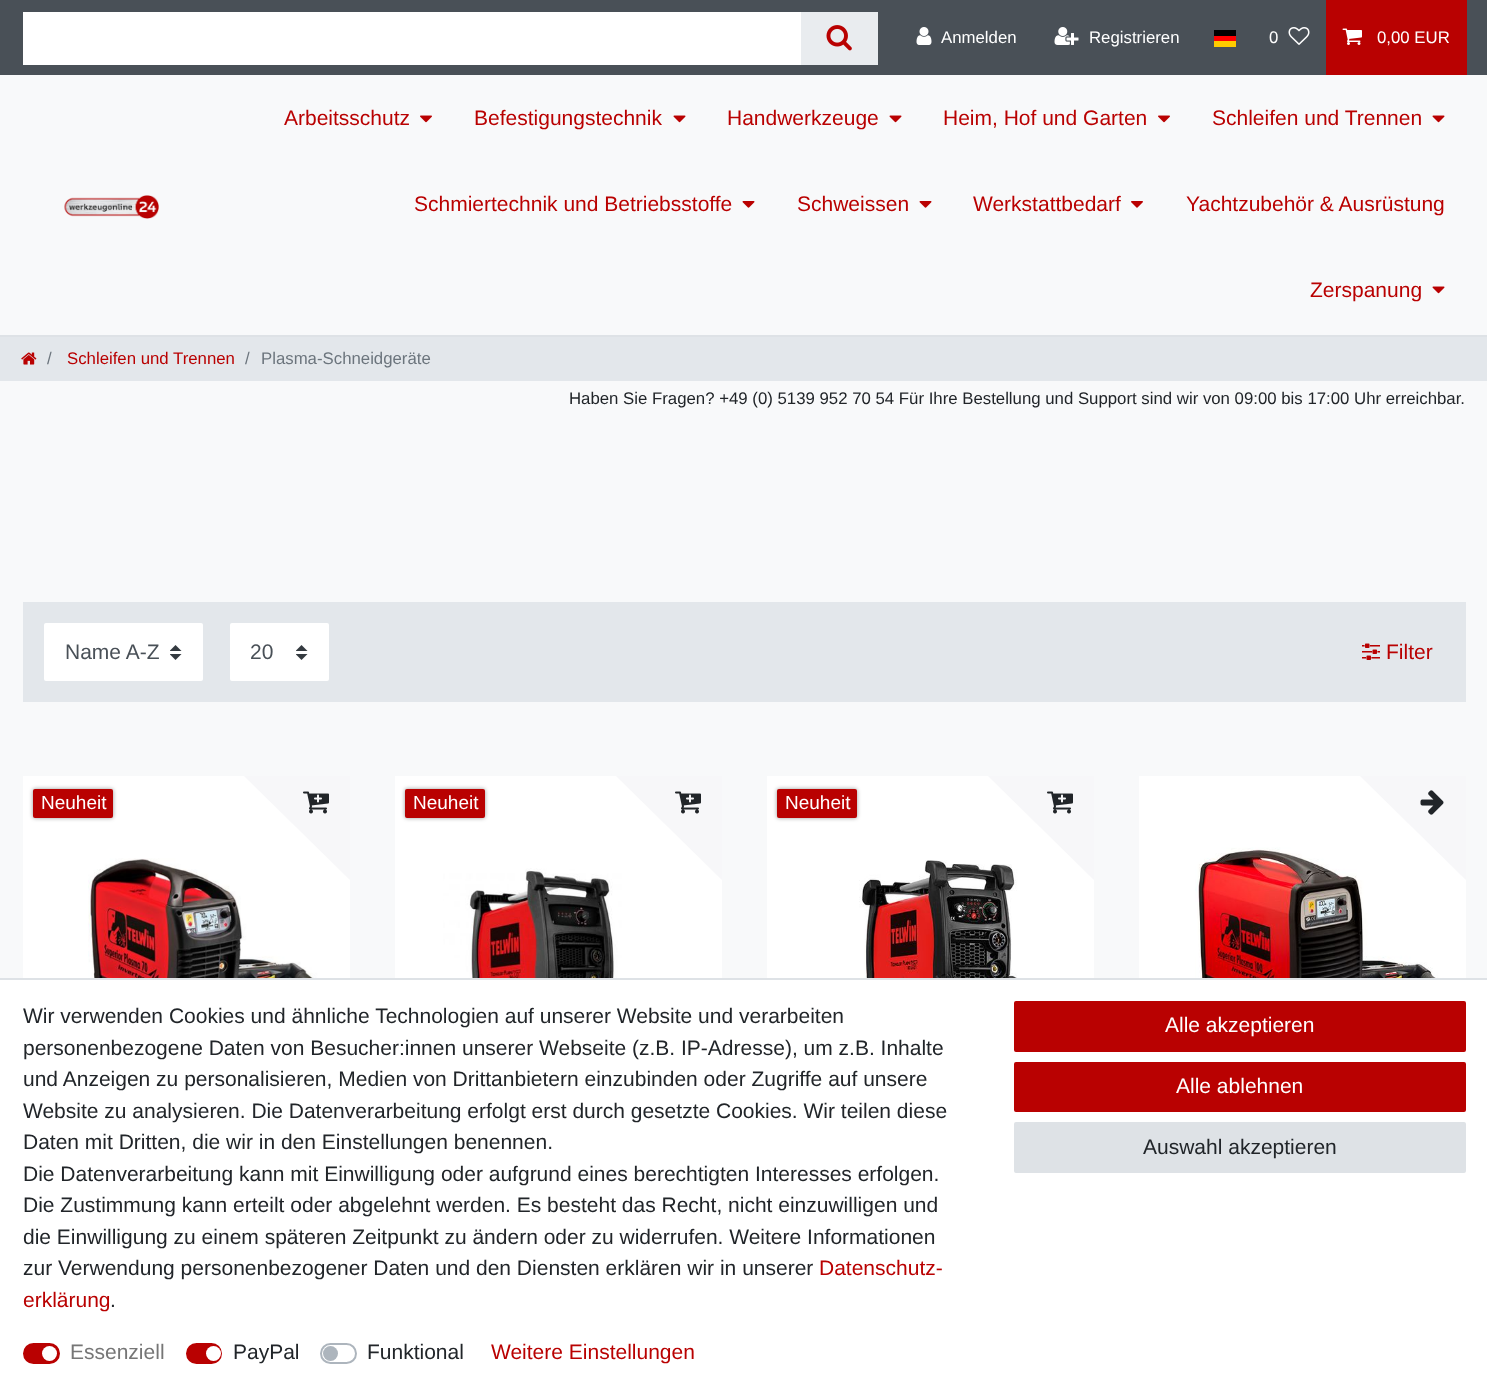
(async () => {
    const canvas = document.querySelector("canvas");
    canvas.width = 1487;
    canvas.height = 1388;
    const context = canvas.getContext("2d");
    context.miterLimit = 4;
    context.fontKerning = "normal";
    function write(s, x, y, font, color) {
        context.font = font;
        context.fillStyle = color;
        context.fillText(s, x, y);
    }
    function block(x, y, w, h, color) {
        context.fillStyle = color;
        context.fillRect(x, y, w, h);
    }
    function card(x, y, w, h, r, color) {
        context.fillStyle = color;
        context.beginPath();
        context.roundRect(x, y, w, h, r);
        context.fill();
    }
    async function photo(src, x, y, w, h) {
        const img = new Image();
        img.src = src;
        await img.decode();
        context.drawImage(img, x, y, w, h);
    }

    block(0, 0, 1487, 1388, "rgb(248, 249, 250)");
    block(0, 0, 1487, 75, "rgb(73, 80, 87)");
    block(23, 12, 778, 53, "rgb(255, 255, 255)");
    block(801, 12, 77, 53, "rgb(233, 236, 239)");
    await photo("media/1.png", 826, 25, 26, 26);
    await photo("media/2.png", 916, 27, 16, 18);
    write("Anmelden", 941, 43, "16.8px Liberation Sans", "rgb(255, 255, 255)");
    await photo("media/3.png", 1054, 27, 25, 18);
    write("Registrieren", 1089, 43, "16.8px Liberation Sans", "rgb(255, 255, 255)");
    block(1214, 41, 22, 6, "rgb(255, 204, 0)");
    block(1214, 30, 22, 6, "rgb(0, 0, 0)");
    block(1214, 36, 22, 5, "rgb(255, 0, 0)");
    write("0", 1269, 43, "16.8px Liberation Sans", "rgb(255, 255, 255)");
    await photo("media/4.png", 1288, 27, 22, 18);
    block(1326, 0, 141, 75, "rgb(185, 1, 1)");
    await photo("media/5.png", 1342, 28, 20, 17);
    write("0,00 EUR", 1377, 43, "16.8px Liberation Sans", "rgb(255, 255, 255)");
    block(0, 335, 1487, 2, "rgb(222, 226, 230)");
    await photo("media/6.png", 64, 195, 95, 24);
    write("Arbeitsschutz", 284, 125, "21px Liberation Sans", "rgb(185, 1, 1)");
    await photo("media/7.png", 420, 115, 12, 8);
    write("Befestigungstechnik", 474, 125, "21px Liberation Sans", "rgb(185, 1, 1)");
    await photo("media/8.png", 673, 115, 13, 8);
    write("Handwerkzeuge", 727, 125, "21px Liberation Sans", "rgb(185, 1, 1)");
    await photo("media/8.png", 889, 115, 13, 8);
    write("Heim, Hof und Garten", 943, 125, "21px Liberation Sans", "rgb(185, 1, 1)");
    await photo("media/7.png", 1158, 115, 12, 8);
    write("Schleifen und Trennen", 1212, 125, "21px Liberation Sans", "rgb(185, 1, 1)");
    await photo("media/8.png", 1432, 115, 13, 8);
    write("Schmiertechnik und Betriebsstoffe", 414, 211, "21px Liberation Sans", "rgb(185, 1, 1)");
    await photo("media/9.png", 742, 201, 13, 7);
    write("Schweissen", 797, 211, "21px Liberation Sans", "rgb(185, 1, 1)");
    await photo("media/9.png", 919, 201, 13, 7);
    write("Werkstattbedarf", 973, 211, "21px Liberation Sans", "rgb(185, 1, 1)");
    await photo("media/10.png", 1131, 201, 12, 7);
    write("Yachtzubehör & Ausrüstung", 1186, 211, "21px Liberation Sans", "rgb(185, 1, 1)");
    write("Zerspanung", 1310, 297, "21px Liberation Sans", "rgb(185, 1, 1)");
    await photo("media/8.png", 1432, 286, 13, 8);
    block(0, 337, 1487, 44, "rgb(227, 231, 235)");
    await photo("media/11.png", 21, 352, 16, 13);
    write("/", 47, 364, "16.8px Liberation Sans", "rgb(108, 117, 125)");
    write("Schleifen und Trennen", 67, 364, "16.8px Liberation Sans", "rgb(185, 1, 1)");
    write("/", 245, 364, "16.8px Liberation Sans", "rgb(108, 117, 125)");
    write("Plasma-Schneidgeräte", 261, 364, "16.8px Liberation Sans", "rgb(108, 117, 125)");
    write("Haben Sie Fragen? +49 (0) 5139 952 70 54 Für Ihre Bestellung und Support sind wir von 09:00 bis 17:00 Uhr erreichbar.", 569, 404, "16.8px Liberation Sans", "rgb(33, 37, 41)");
    block(23, 602, 1443, 100, "rgb(227, 231, 235)");
    card(44, 623, 159, 58, 2, "rgb(255, 255, 255)");
    await photo("media/12.png", 170, 645, 12, 15);
    write("Name A-Z", 65, 659, "21px Liberation Sans", "rgb(73, 80, 87)");
    card(230, 623, 99, 58, 2, "rgb(255, 255, 255)");
    await photo("media/12.png", 296, 645, 12, 15);
    write("20", 250, 659, "21px Liberation Sans", "rgb(73, 80, 87)");
    await photo("media/13.png", 1362, 643, 18, 17);
    write("Filter", 1386, 659, "21px Liberation Sans", "rgb(185, 1, 1)");
    block(23, 776, 327, 202, "rgb(255, 255, 255)");
    context.fillStyle = "rgba(0, 0, 0, 0.4)";
    context.filter = "blur(2px)";
    context.beginPath();
    context.roundRect(33, 789, 80, 29, 2);
    context.fill();
    context.filter = "none";
    card(33, 789, 80, 29, 2, "rgb(185, 1, 1)");
    write("Neuheit", 41, 809, "19px Liberation Sans", "rgb(255, 255, 255)");
    await photo("media/15.png", 88, 858, 230, 120);
    context.fillStyle = "rgb(247, 247, 249)";
    context.beginPath();
    context.moveTo(350, 776);
    context.lineTo(350, 880);
    context.lineTo(244, 776);
    context.closePath();
    context.fill();
    await photo("media/14.png", 303, 791, 26, 23);
    block(395, 776, 327, 202, "rgb(255, 255, 255)");
    context.fillStyle = "rgba(0, 0, 0, 0.4)";
    context.filter = "blur(2px)";
    context.beginPath();
    context.roundRect(405, 789, 80, 29, 2);
    context.fill();
    context.filter = "none";
    card(405, 789, 80, 29, 2, "rgb(185, 1, 1)");
    write("Neuheit", 413, 809, "19px Liberation Sans", "rgb(255, 255, 255)");
    await photo("media/16.png", 443, 868, 179, 110);
    context.fillStyle = "rgb(247, 247, 249)";
    context.beginPath();
    context.moveTo(722, 776);
    context.lineTo(722, 880);
    context.lineTo(616, 776);
    context.closePath();
    context.fill();
    await photo("media/14.png", 675, 791, 26, 23);
    block(767, 776, 327, 202, "rgb(255, 255, 255)");
    context.fillStyle = "rgba(0, 0, 0, 0.4)";
    context.filter = "blur(2px)";
    context.beginPath();
    context.roundRect(777, 789, 80, 29, 2);
    context.fill();
    context.filter = "none";
    card(777, 789, 80, 29, 2, "rgb(185, 1, 1)");
    write("Neuheit", 785, 809, "19px Liberation Sans", "rgb(255, 255, 255)");
    await photo("media/17.png", 832, 860, 190, 118);
    context.fillStyle = "rgb(247, 247, 249)";
    context.beginPath();
    context.moveTo(1094, 776);
    context.lineTo(1094, 880);
    context.lineTo(988, 776);
    context.closePath();
    context.fill();
    await photo("media/14.png", 1047, 791, 26, 23);
    block(1139, 776, 327, 202, "rgb(255, 255, 255)");
    await photo("media/19.png", 1195, 847, 252, 131);
    context.fillStyle = "rgb(247, 247, 249)";
    context.beginPath();
    context.moveTo(1466, 776);
    context.lineTo(1466, 880);
    context.lineTo(1360, 776);
    context.closePath();
    context.fill();
    await photo("media/18.png", 1420, 790, 24, 25);
    block(0, 980, 1487, 408, "rgb(255, 255, 255)");
    block(0, 978, 1487, 2, "rgb(222, 226, 230)");
    write("Wir verwenden Cookies und ähnliche Technologien auf unserer Website und verarbeiten", 23, 1023, "21px Liberation Sans", "rgb(33, 37, 41)");
    write("personenbezogene Daten von Besucher:innen unserer Webseite (z.B. IP-Adresse), um z.B. Inhalte", 23, 1055, "21px Liberation Sans", "rgb(33, 37, 41)");
    write("und Anzeigen zu personalisieren, Medien von Drittanbietern einzubinden oder Zugriffe auf unsere", 23, 1086, "21px Liberation Sans", "rgb(33, 37, 41)");
    write("Website zu analysieren. Die Datenverarbeitung erfolgt erst durch gesetzte Cookies. Wir teilen diese", 23, 1118, "21px Liberation Sans", "rgb(33, 37, 41)");
    write("Daten mit Dritten, die wir in den Einstellungen benennen.", 23, 1149, "21px Liberation Sans", "rgb(33, 37, 41)");
    write("Die Datenverarbeitung kann mit Einwilligung oder aufgrund eines berechtigten Interesses erfolgen.", 23, 1181, "21px Liberation Sans", "rgb(33, 37, 41)");
    write("Die Zustimmung kann erteilt oder abgelehnt werden. Es besteht das Recht, nicht einzuwilligen und", 23, 1212, "21px Liberation Sans", "rgb(33, 37, 41)");
    write("die Einwilligung zu einem späteren Zeitpunkt zu ändern oder zu widerrufen. Weitere Informationen", 23, 1244, "21px Liberation Sans", "rgb(33, 37, 41)");
    write("zur Verwendung personenbezogener Daten und den Diensten erklären wir in unserer", 23, 1275, "21px Liberation Sans", "rgb(33, 37, 41)");
    write("Datenschutz-", 819, 1275, "21px Liberation Sans", "rgb(185, 1, 1)");
    write("erklärung", 23, 1307, "21px Liberation Sans", "rgb(185, 1, 1)");
    write(".", 110, 1307, "21px Liberation Sans", "rgb(33, 37, 41)");
    context.fillStyle = "rgb(185, 1, 1)";
    context.beginPath();
    context.roundRect(24, 1344, 35, 19, 9.5);
    context.fill();
    context.strokeStyle = "rgb(185, 1, 1)";
    context.lineWidth = 2;
    context.stroke();
    write("Essenziell", 70, 1359, "21px Liberation Sans", "rgb(118, 118, 118)");
    context.fillStyle = "rgb(255, 255, 255)";
    context.beginPath();
    context.arc(49.5, 1353.5, 7.5, 0, Math.PI * 2);
    context.fill();
    context.fillStyle = "rgb(185, 1, 1)";
    context.beginPath();
    context.roundRect(187, 1344, 34, 19, 9.5);
    context.fill();
    context.stroke();
    write("PayPal", 233, 1359, "21px Liberation Sans", "rgb(33, 37, 41)");
    context.fillStyle = "rgb(255, 255, 255)";
    context.beginPath();
    context.arc(213.5, 1353.5, 7.5, 0, Math.PI * 2);
    context.fill();
    context.beginPath();
    context.roundRect(321, 1344, 35, 19, 9.5);
    context.strokeStyle = "rgb(173, 181, 189)";
    context.stroke();
    write("Funktional", 367, 1359, "21px Liberation Sans", "rgb(33, 37, 41)");
    context.fillStyle = "rgb(173, 181, 189)";
    context.beginPath();
    context.arc(330.5, 1353.5, 7.5, 0, Math.PI * 2);
    context.fill();
    write("Weitere Einstellungen", 491, 1359, "21px Liberation Sans", "rgb(185, 1, 1)");
    context.beginPath();
    context.roundRect(1015, 1002, 450, 49, 1);
    context.fill();
    context.strokeStyle = "rgb(185, 1, 1)";
    context.stroke();
    write("Alle akzeptieren", 1165, 1032, "21px Liberation Sans", "rgb(255, 255, 255)");
    context.fillStyle = "rgb(185, 1, 1)";
    context.beginPath();
    context.roundRect(1015, 1063, 450, 48, 1);
    context.fill();
    context.stroke();
    write("Alle ablehnen", 1176, 1093, "21px Liberation Sans", "rgb(255, 255, 255)");
    context.fillStyle = "rgb(222, 226, 230)";
    context.beginPath();
    context.roundRect(1015, 1123, 450, 49, 1);
    context.fill();
    context.strokeStyle = "rgb(222, 226, 230)";
    context.stroke();
    write("Auswahl akzeptieren", 1143, 1154, "21px Liberation Sans", "rgb(33, 37, 41)");
})();
